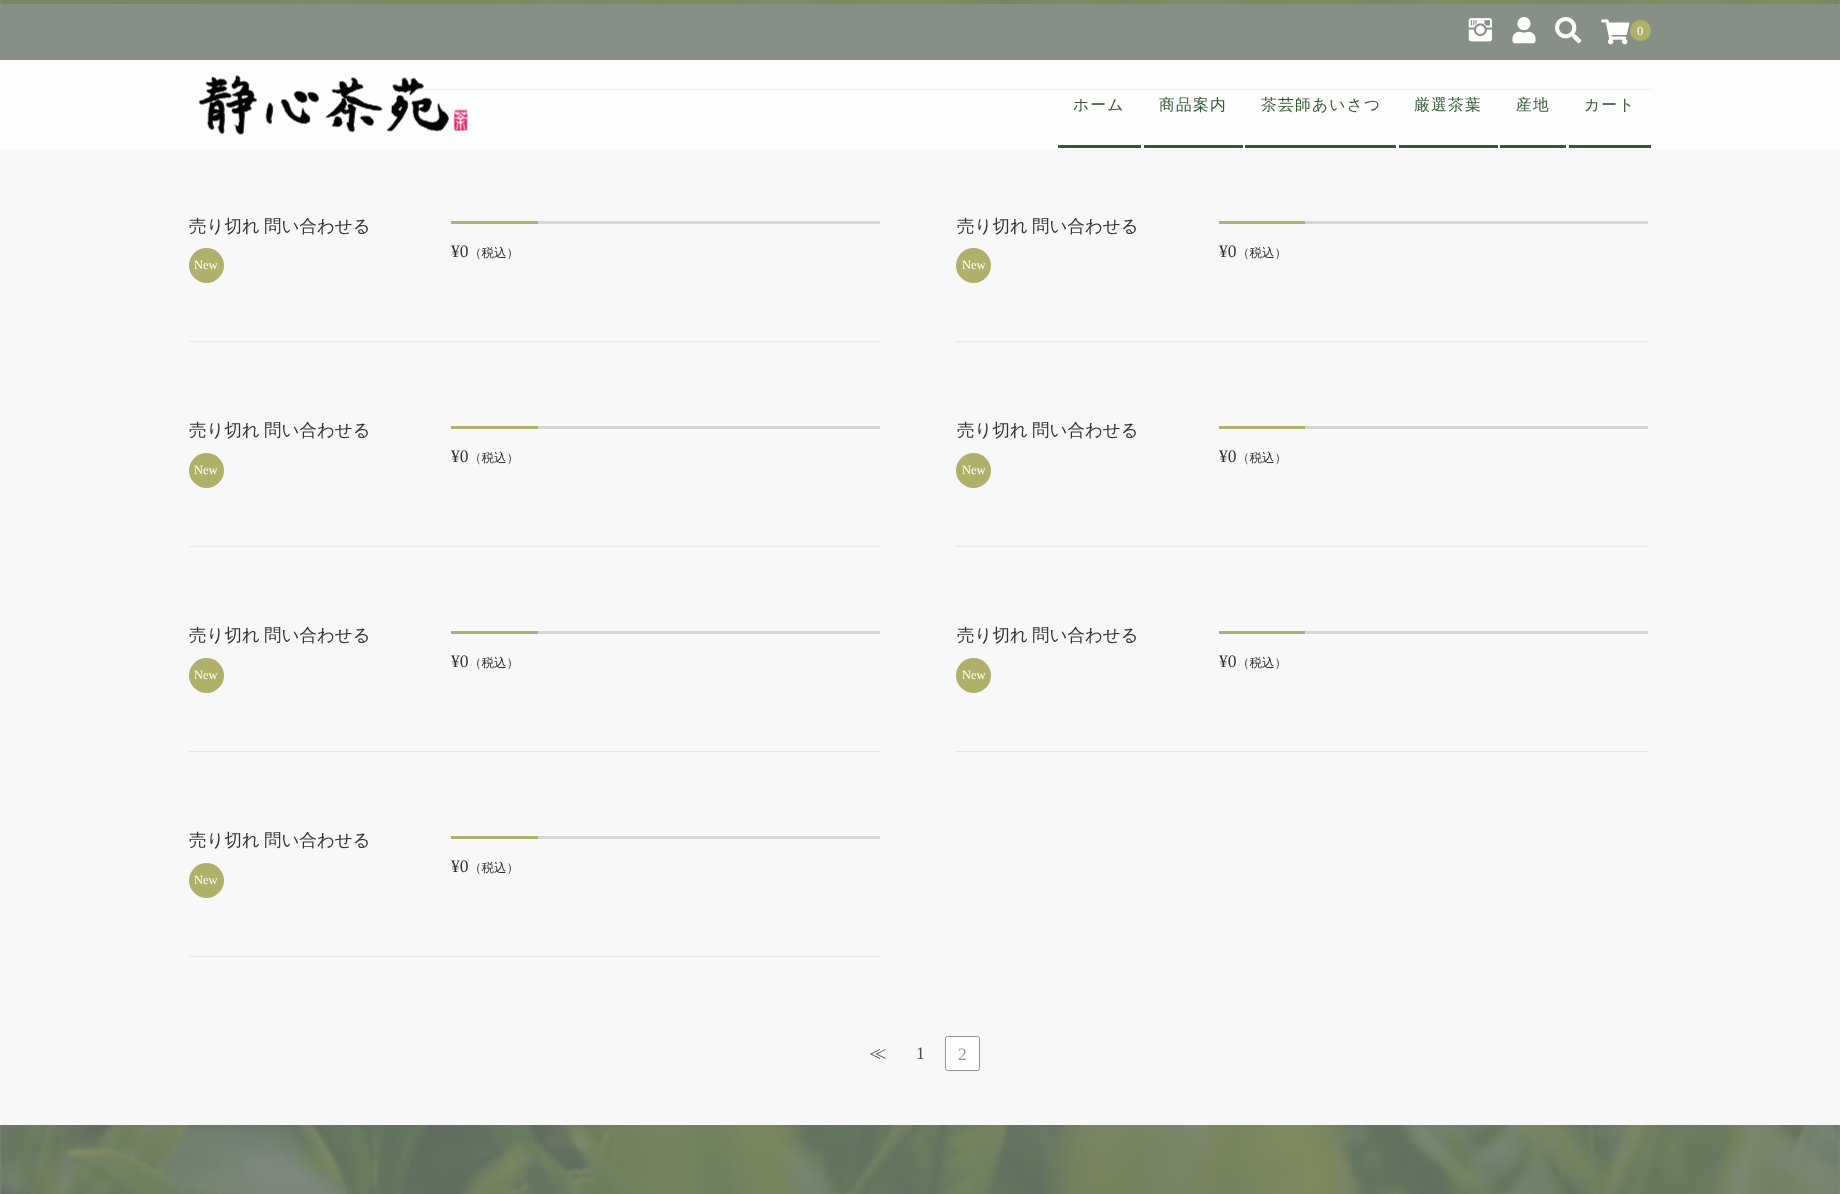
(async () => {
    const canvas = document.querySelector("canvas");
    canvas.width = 1840;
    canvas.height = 1194;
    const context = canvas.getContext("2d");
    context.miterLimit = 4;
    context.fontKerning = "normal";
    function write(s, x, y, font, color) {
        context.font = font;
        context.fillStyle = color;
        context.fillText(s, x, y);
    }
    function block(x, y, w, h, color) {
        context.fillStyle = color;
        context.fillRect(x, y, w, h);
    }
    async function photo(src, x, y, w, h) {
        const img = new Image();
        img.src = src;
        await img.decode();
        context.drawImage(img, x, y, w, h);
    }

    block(0, 0, 1840, 1194, "rgb(255, 255, 255)");
    await photo("media/5.png", 0, 0, 1840, 1194);
    block(0, 4, 1840, 1121, "rgb(248, 248, 248)");
    block(0, 0, 1840, 60, "rgba(98, 110, 96, 0.75)");
    await photo("media/1.png", 1468, 18, 24, 24);
    await photo("media/2.png", 1512, 17, 24, 27);
    await photo("media/3.png", 1555, 17, 27, 27);
    await photo("media/4.png", 1601, 19, 29, 26);
    context.fillStyle = "rgb(175, 176, 106)";
    context.beginPath();
    context.arc(1640.5, 30.5, 10.5, 0, Math.PI * 2);
    context.fill();
    write("0", 1637, 35, "12.5px Liberation Serif", "rgb(255, 255, 255)");
    block(414, 89, 55, 1, "rgb(175, 176, 106)");
    context.save();
    context.beginPath();
    context.rect(189, 68, 1462, 70);
    context.clip();
    context.beginPath();
    context.moveTo(400, 89.5);
    context.lineTo(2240, 89.5);
    context.strokeStyle = "rgb(170, 170, 170)";
    context.lineWidth = 1.2;
    context.setLineDash([1.25, 1.25]);
    context.stroke();
    context.restore();
    block(469, 89, 1182, 1, "rgb(175, 176, 106)");
    context.save();
    context.beginPath();
    context.rect(189, 68, 1462, 70);
    context.clip();
    context.beginPath();
    context.moveTo(469, 89.5);
    context.lineTo(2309, 89.5);
    context.strokeStyle = "rgb(170, 170, 170)";
    context.lineWidth = 1.2;
    context.setLineDash([1.25, 1.25]);
    context.stroke();
    context.restore();
    block(0, 60, 1840, 90, "rgba(255, 255, 255, 0.8)");
    block(1058, 145, 83, 3, "rgb(52, 90, 50)");
    context.letterSpacing = "1.25px";
    write("ホーム", 1073, 110, "500 15.75px WenQuanYi Zen Hei", "rgb(52, 90, 50)");
    block(1144, 145, 99, 3, "rgb(52, 90, 50)");
    write("商品案内", 1159, 110, "500 15.75px WenQuanYi Zen Hei", "rgb(52, 90, 50)");
    block(1245, 145, 151, 3, "rgb(52, 90, 50)");
    write("茶芸師あいさつ", 1261, 110, "500 15.75px WenQuanYi Zen Hei", "rgb(52, 90, 50)");
    block(1399, 145, 99, 3, "rgb(52, 90, 50)");
    write("厳選茶葉", 1414, 110, "500 15.75px WenQuanYi Zen Hei", "rgb(52, 90, 50)");
    block(1500, 145, 66, 3, "rgb(52, 90, 50)");
    write("産地", 1516, 110, "500 15.75px WenQuanYi Zen Hei", "rgb(52, 90, 50)");
    block(1569, 145, 82, 3, "rgb(52, 90, 50)");
    write("カート", 1584, 110, "500 15.75px WenQuanYi Zen Hei", "rgb(52, 90, 50)");
    await photo("media/6.png", 198, 75, 270, 60);
    block(189, 341, 691, 1, "rgb(231, 231, 231)");
    context.letterSpacing = "0px";
    write("売り切れ", 189, 232, "500 17.5px WenQuanYi Zen Hei", "rgb(50, 50, 50)");
    write("問い合わせる", 264, 232, "500 17.5px WenQuanYi Zen Hei", "rgb(50, 50, 50)");
    context.fillStyle = "rgb(175, 176, 106)";
    context.beginPath();
    context.arc(206.5, 265.5, 17.5, 0, Math.PI * 2);
    context.fill();
    write("New", 194, 269, "12.5px Liberation Serif", "rgb(255, 255, 255)");
    block(538, 221, 342, 3, "rgb(214, 214, 214)");
    block(451, 221, 87, 3, "rgb(175, 176, 106)");
    write("¥0", 451, 257, "17.5px Liberation Serif", "rgb(50, 50, 50)");
    write("（税込）", 469, 257, "500 12.5px WenQuanYi Zen Hei", "rgb(50, 50, 50)");
    block(956, 341, 692, 1, "rgb(231, 231, 231)");
    write("売り切れ", 957, 232, "500 17.5px WenQuanYi Zen Hei", "rgb(50, 50, 50)");
    write("問い合わせる", 1032, 232, "500 17.5px WenQuanYi Zen Hei", "rgb(50, 50, 50)");
    context.fillStyle = "rgb(175, 176, 106)";
    context.beginPath();
    context.arc(973.5, 265.5, 17.5, 0, Math.PI * 2);
    context.fill();
    write("New", 962, 269, "12.5px Liberation Serif", "rgb(255, 255, 255)");
    block(1305, 221, 343, 3, "rgb(214, 214, 214)");
    block(1219, 221, 86, 3, "rgb(175, 176, 106)");
    write("¥0", 1219, 257, "17.5px Liberation Serif", "rgb(50, 50, 50)");
    write("（税込）", 1237, 257, "500 12.5px WenQuanYi Zen Hei", "rgb(50, 50, 50)");
    block(189, 546, 691, 1, "rgb(231, 231, 231)");
    write("売り切れ", 189, 436, "500 17.5px WenQuanYi Zen Hei", "rgb(50, 50, 50)");
    write("問い合わせる", 264, 436, "500 17.5px WenQuanYi Zen Hei", "rgb(50, 50, 50)");
    context.fillStyle = "rgb(175, 176, 106)";
    context.beginPath();
    context.arc(206.5, 470.5, 17.5, 0, Math.PI * 2);
    context.fill();
    write("New", 194, 474, "12.5px Liberation Serif", "rgb(255, 255, 255)");
    block(538, 426, 342, 3, "rgb(214, 214, 214)");
    block(451, 426, 87, 3, "rgb(175, 176, 106)");
    write("¥0", 451, 462, "17.5px Liberation Serif", "rgb(50, 50, 50)");
    write("（税込）", 469, 462, "500 12.5px WenQuanYi Zen Hei", "rgb(50, 50, 50)");
    block(956, 546, 692, 1, "rgb(231, 231, 231)");
    write("売り切れ", 957, 436, "500 17.5px WenQuanYi Zen Hei", "rgb(50, 50, 50)");
    write("問い合わせる", 1032, 436, "500 17.5px WenQuanYi Zen Hei", "rgb(50, 50, 50)");
    context.fillStyle = "rgb(175, 176, 106)";
    context.beginPath();
    context.arc(973.5, 470.5, 17.5, 0, Math.PI * 2);
    context.fill();
    write("New", 962, 474, "12.5px Liberation Serif", "rgb(255, 255, 255)");
    block(1305, 426, 343, 3, "rgb(214, 214, 214)");
    block(1219, 426, 86, 3, "rgb(175, 176, 106)");
    write("¥0", 1219, 462, "17.5px Liberation Serif", "rgb(50, 50, 50)");
    write("（税込）", 1237, 462, "500 12.5px WenQuanYi Zen Hei", "rgb(50, 50, 50)");
    block(189, 751, 691, 1, "rgb(231, 231, 231)");
    write("売り切れ", 189, 641, "500 17.5px WenQuanYi Zen Hei", "rgb(50, 50, 50)");
    write("問い合わせる", 264, 641, "500 17.5px WenQuanYi Zen Hei", "rgb(50, 50, 50)");
    context.fillStyle = "rgb(175, 176, 106)";
    context.beginPath();
    context.arc(206.5, 675.5, 17.5, 0, Math.PI * 2);
    context.fill();
    write("New", 194, 679, "12.5px Liberation Serif", "rgb(255, 255, 255)");
    block(538, 631, 342, 3, "rgb(214, 214, 214)");
    block(451, 631, 87, 3, "rgb(175, 176, 106)");
    write("¥0", 451, 667, "17.5px Liberation Serif", "rgb(50, 50, 50)");
    write("（税込）", 469, 667, "500 12.5px WenQuanYi Zen Hei", "rgb(50, 50, 50)");
    block(956, 751, 692, 1, "rgb(231, 231, 231)");
    write("売り切れ", 957, 641, "500 17.5px WenQuanYi Zen Hei", "rgb(50, 50, 50)");
    write("問い合わせる", 1032, 641, "500 17.5px WenQuanYi Zen Hei", "rgb(50, 50, 50)");
    context.fillStyle = "rgb(175, 176, 106)";
    context.beginPath();
    context.arc(973.5, 675.5, 17.5, 0, Math.PI * 2);
    context.fill();
    write("New", 962, 679, "12.5px Liberation Serif", "rgb(255, 255, 255)");
    block(1305, 631, 343, 3, "rgb(214, 214, 214)");
    block(1219, 631, 86, 3, "rgb(175, 176, 106)");
    write("¥0", 1219, 667, "17.5px Liberation Serif", "rgb(50, 50, 50)");
    write("（税込）", 1237, 667, "500 12.5px WenQuanYi Zen Hei", "rgb(50, 50, 50)");
    block(189, 956, 691, 1, "rgb(231, 231, 231)");
    write("売り切れ", 189, 846, "500 17.5px WenQuanYi Zen Hei", "rgb(50, 50, 50)");
    write("問い合わせる", 264, 846, "500 17.5px WenQuanYi Zen Hei", "rgb(50, 50, 50)");
    context.fillStyle = "rgb(175, 176, 106)";
    context.beginPath();
    context.arc(206.5, 880.5, 17.5, 0, Math.PI * 2);
    context.fill();
    write("New", 194, 884, "12.5px Liberation Serif", "rgb(255, 255, 255)");
    block(538, 836, 342, 3, "rgb(214, 214, 214)");
    block(451, 836, 87, 3, "rgb(175, 176, 106)");
    write("¥0", 451, 872, "17.5px Liberation Serif", "rgb(50, 50, 50)");
    write("（税込）", 469, 872, "500 12.5px WenQuanYi Zen Hei", "rgb(50, 50, 50)");
    write("≪", 869, 1059, "500 17.5px WenQuanYi Zen Hei", "rgb(77, 77, 77)");
    write("1", 916, 1059, "17.5px Liberation Serif", "rgb(77, 77, 77)");
    context.fillStyle = "rgb(255, 255, 255)";
    context.beginPath();
    context.roundRect(945.5, 1036.5, 34, 34, 2);
    context.fill();
    context.strokeStyle = "rgb(148, 148, 148)";
    context.stroke();
    write("2", 958, 1060, "17.5px Liberation Serif", "rgb(148, 148, 148)");
    block(0, 1125, 1840, 69, "rgba(98, 110, 96, 0.8)");
})();
